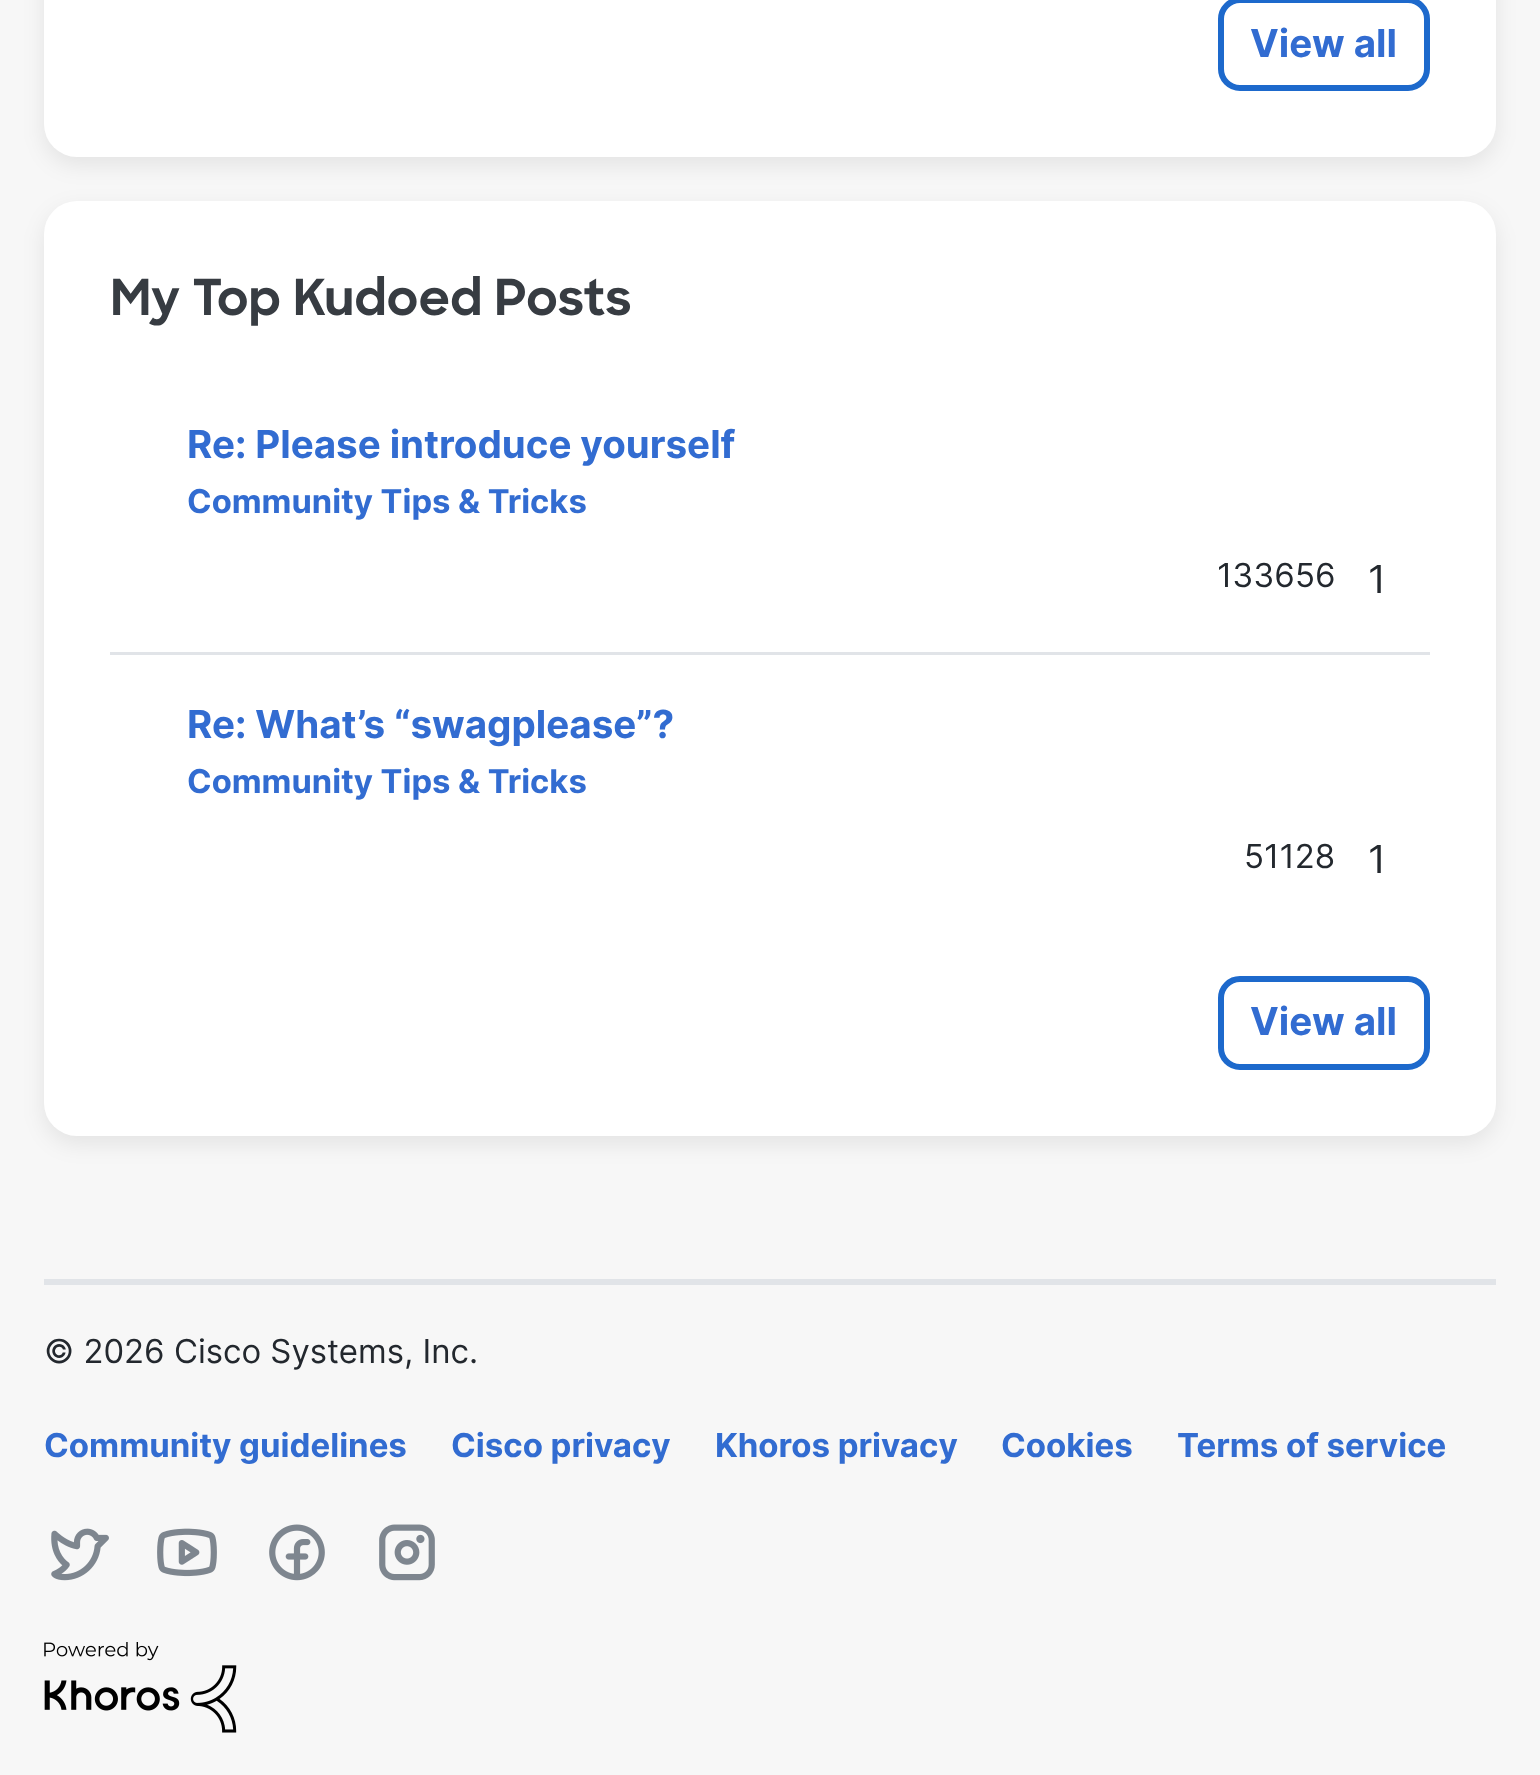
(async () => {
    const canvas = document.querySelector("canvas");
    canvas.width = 1540;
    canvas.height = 1775;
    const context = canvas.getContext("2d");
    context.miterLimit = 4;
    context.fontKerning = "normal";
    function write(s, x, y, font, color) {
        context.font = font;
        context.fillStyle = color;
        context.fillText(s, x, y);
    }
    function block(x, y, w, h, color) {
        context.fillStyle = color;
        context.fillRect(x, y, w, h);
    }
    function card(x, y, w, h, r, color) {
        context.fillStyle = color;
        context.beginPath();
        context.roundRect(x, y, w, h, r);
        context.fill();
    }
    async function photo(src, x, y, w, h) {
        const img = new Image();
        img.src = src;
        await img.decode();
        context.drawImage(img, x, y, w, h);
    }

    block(0, 0, 1540, 1775, "rgb(247, 247, 247)");
    context.fillStyle = "rgba(0, 0, 0, 0.08)";
    context.filter = "blur(11px)";
    context.beginPath();
    context.roundRect(44, -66, 1452, 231, 33);
    context.fill();
    context.filter = "none";
    card(44, -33, 1452, 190, 33, "rgb(255, 255, 255)");
    context.beginPath();
    context.roundRect(1221, 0, 206, 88, 19);
    context.strokeStyle = "rgb(29, 105, 204)";
    context.lineWidth = 6;
    context.stroke();
    write("View all", 1250, 57, "bold 38.5px Inter", "rgb(50, 108, 209)");
    context.fillStyle = "rgba(0, 0, 0, 0.08)";
    context.filter = "blur(11px)";
    context.beginPath();
    context.roundRect(44, 209, 1452, 935, 33);
    context.fill();
    context.filter = "none";
    card(44, 201, 1452, 935, 33, "rgb(255, 255, 255)");
    write("My Top Kudoed Posts", 110, 315, "bold 49.5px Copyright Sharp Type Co", "rgb(55, 60, 66)");
    write("Re: Please introduce yourself", 187, 458, "bold 38.5px Inter", "rgb(50, 108, 209)");
    write("Community Tips & Tricks", 187, 513, "bold 32.75px Inter", "rgb(50, 108, 209)");
    write("133656", 1217, 587, "33px Inter", "rgb(35, 40, 46)");
    write("1", 1368, 593, "38.5px Inter", "rgb(35, 40, 46)");
    block(110, 652, 1320, 3, "rgb(225, 228, 232)");
    write("Re: What’s “swagplease”?", 187, 738, "bold 38.5px Inter", "rgb(50, 108, 209)");
    write("Community Tips & Tricks", 187, 793, "bold 32.75px Inter", "rgb(50, 108, 209)");
    write("51128", 1244, 868, "33px Inter", "rgb(35, 40, 46)");
    write("1", 1368, 873, "38.5px Inter", "rgb(35, 40, 46)");
    context.beginPath();
    context.roundRect(1221, 979, 206, 88, 19);
    context.stroke();
    write("View all", 1250, 1035, "bold 38.5px Inter", "rgb(50, 108, 209)");
    block(44, 1279, 1452, 6, "rgb(225, 228, 232)");
    write("© 2026 Cisco Systems, Inc.", 44, 1363, "33px Inter", "rgb(35, 40, 46)");
    write("Community guidelines", 44, 1457, "bold 33px Inter", "rgb(50, 108, 209)");
    write("Cisco privacy", 451, 1457, "bold 33px Inter", "rgb(50, 108, 209)");
    write("Khoros privacy", 715, 1457, "bold 33px Inter", "rgb(50, 108, 209)");
    write("Cookies", 1001, 1457, "bold 33px Inter", "rgb(50, 108, 209)");
    write("Terms of service", 1177, 1457, "bold 33px Inter", "rgb(50, 108, 209)");
    await photo("media/1.png", 51, 1528, 58, 53);
    await photo("media/2.png", 157, 1528, 60, 49);
    await photo("media/3.png", 269, 1524, 56, 57);
    await photo("media/4.png", 379, 1524, 56, 57);
    await photo("media/5.png", 44, 1642, 193, 91);
})();
